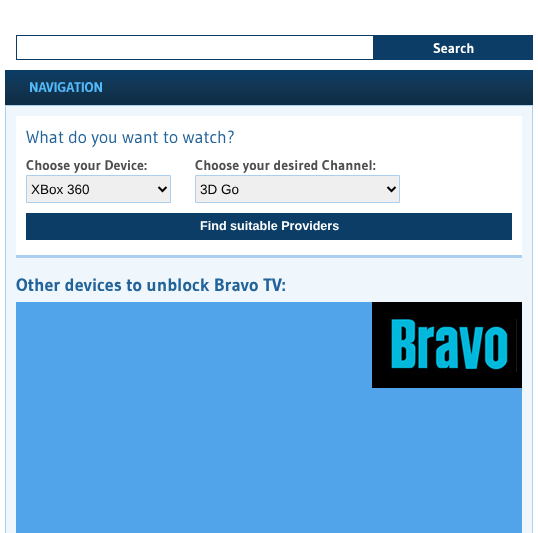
(async () => {
    const canvas = document.querySelector("canvas");
    canvas.width = 538;
    canvas.height = 533;
    const context = canvas.getContext("2d");
    context.miterLimit = 4;
    context.fontKerning = "normal";
    function write(s, x, y, font, color) {
        context.font = font;
        context.fillStyle = color;
        context.fillText(s, x, y);
    }
    function block(x, y, w, h, color) {
        context.fillStyle = color;
        context.fillRect(x, y, w, h);
    }
    async function photo(src, x, y, w, h) {
        const img = new Image();
        img.src = src;
        await img.decode();
        context.drawImage(img, x, y, w, h);
    }
    let gradient;

    block(0, 0, 538, 533, "rgb(255, 255, 255)");
    context.strokeStyle = "rgb(11, 61, 103)";
    context.strokeRect(16.5, 35.5, 357, 24);
    block(374, 35, 159, 25, "rgb(11, 61, 103)");
    write("Search", 433, 53, "bold 14px Gudea", "rgb(255, 255, 255)");
    gradient = context.createLinearGradient(269, 70, 269, 105);
    gradient.addColorStop(0, "rgb(11, 61, 103)");
    gradient.addColorStop(0.45, "rgb(18, 54, 84)");
    gradient.addColorStop(1, "rgb(14, 44, 68)");
    context.fillStyle = gradient;
    context.fillRect(5, 70, 528, 35);
    write("NAVIGATION", 29, 92, "bold 14px Gudea", "rgb(82, 184, 247)");
    context.fillStyle = "rgb(239, 247, 252)";
    context.beginPath();
    context.rect(5.5, 105.5, 527, 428);
    context.fill();
    context.strokeStyle = "rgb(171, 208, 239)";
    context.stroke();
    block(16, 116, 506, 139, "rgb(255, 255, 255)");
    block(16, 255, 506, 3, "rgb(171, 208, 239)");
    write("What do you want to watch?", 26, 143, "17.5px Gudea", "rgb(34, 99, 153)");
    write("Choose your Device:", 26, 170, "bold 14px Gudea", "rgb(78, 78, 78)");
    context.fillStyle = "rgb(239, 239, 239)";
    context.beginPath();
    context.rect(26.5, 175.5, 144, 27);
    context.fill();
    context.stroke();
    context.beginPath();
    context.moveTo(158.5, 187);
    context.lineTo(162.5, 191);
    context.lineTo(166.5, 187);
    context.strokeStyle = "rgb(0, 0, 0)";
    context.lineWidth = 2;
    context.stroke();
    write("XBox 360", 31, 194, "13.5px Liberation Sans", "rgb(0, 0, 0)");
    write("Choose your desired Channel:", 195, 170, "bold 14px Gudea", "rgb(78, 78, 78)");
    context.fillStyle = "rgb(239, 239, 239)";
    context.beginPath();
    context.rect(195.5, 175.5, 204, 27);
    context.fill();
    context.strokeStyle = "rgb(171, 208, 239)";
    context.lineWidth = 1;
    context.stroke();
    context.beginPath();
    context.moveTo(387.5, 187);
    context.lineTo(391.5, 191);
    context.lineTo(395.5, 187);
    context.strokeStyle = "rgb(0, 0, 0)";
    context.lineWidth = 2;
    context.stroke();
    write("3D Go", 200, 194, "13.5px Liberation Sans", "rgb(0, 0, 0)");
    block(26, 213, 486, 27, "rgb(11, 61, 103)");
    write("Find suitable Providers", 200, 230, "bold 12.6px Liberation Sans", "rgb(255, 255, 255)");
    write("Other devices to unblock Bravo TV:", 16, 291, "bold 18px Gudea", "rgb(34, 99, 153)");
    block(16, 302, 506, 231, "rgb(82, 164, 234)");
    await photo("media/1.png", 372, 302, 150, 86);
})();
